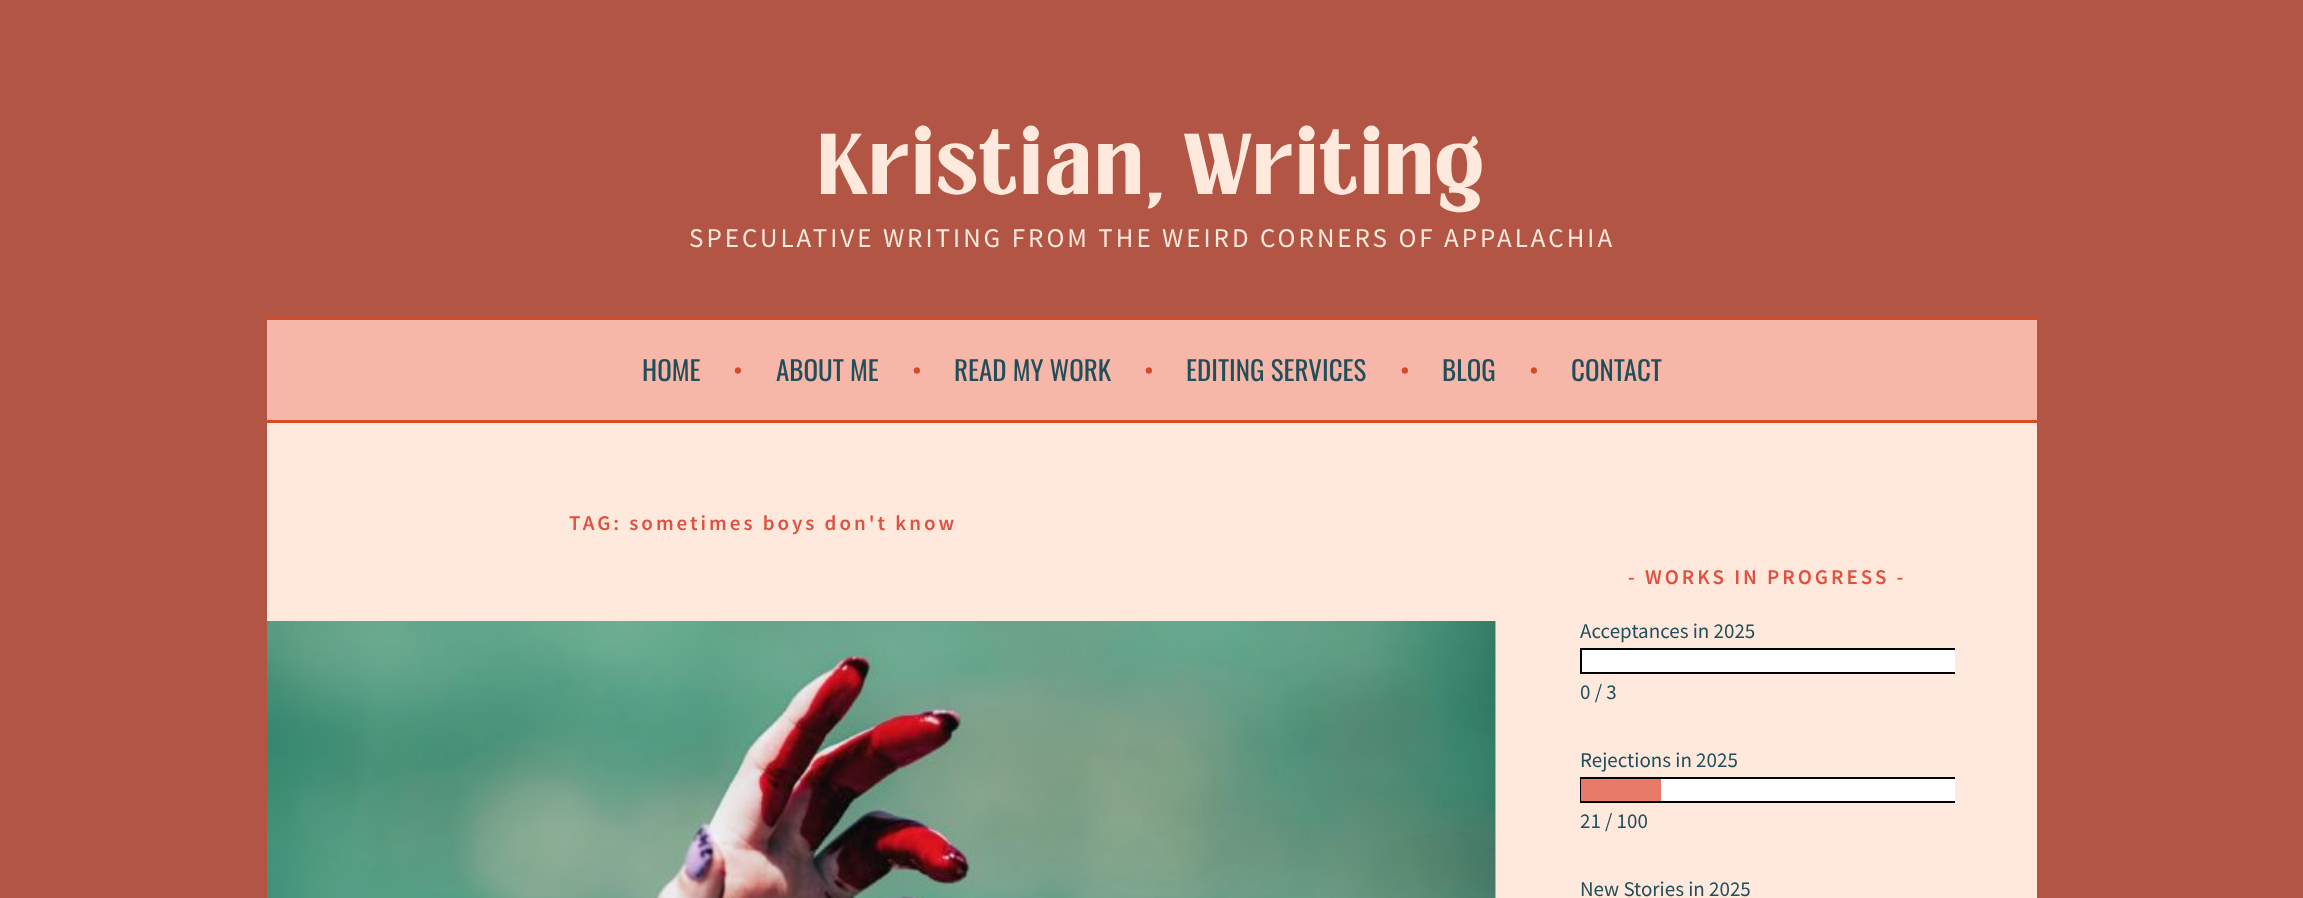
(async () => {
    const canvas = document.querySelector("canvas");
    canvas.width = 2303;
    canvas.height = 898;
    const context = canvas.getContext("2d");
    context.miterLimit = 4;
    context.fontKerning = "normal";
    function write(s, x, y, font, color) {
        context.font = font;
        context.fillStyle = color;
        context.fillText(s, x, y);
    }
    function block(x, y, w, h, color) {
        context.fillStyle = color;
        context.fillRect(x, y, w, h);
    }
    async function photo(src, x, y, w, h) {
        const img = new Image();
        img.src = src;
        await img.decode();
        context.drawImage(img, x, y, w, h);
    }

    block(0, 0, 2303, 898, "rgb(178, 85, 68)");
    context.letterSpacing = "3px";
    write("Kristian, Writing", 819, 194, "900 66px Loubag", "rgb(255, 233, 220)");
    write("SPECULATIVE WRITING FROM THE WEIRD CORNERS OF APPALACHIA", 689, 247, "27px Source Sans Pro", "rgb(255, 233, 220)");
    block(267, 320, 1770, 100, "rgb(246, 183, 168)");
    block(267, 317, 1770, 3, "rgb(211, 74, 36)");
    block(267, 420, 1770, 3, "rgb(211, 74, 36)");
    context.letterSpacing = "0px";
    write("HOME", 642, 381, "27px Oswald", "rgb(34, 78, 91)");
    write("•", 733, 381, "27px Oswald", "rgb(211, 74, 36)");
    write("ABOUT ME", 776, 381, "27px Oswald", "rgb(34, 78, 91)");
    write("•", 912, 381, "27px Oswald", "rgb(211, 74, 36)");
    write("READ MY WORK", 954, 381, "27px Oswald", "rgb(34, 78, 91)");
    write("•", 1144, 381, "27px Oswald", "rgb(211, 74, 36)");
    write("EDITING SERVICES", 1186, 381, "27px Oswald", "rgb(34, 78, 91)");
    write("•", 1400, 381, "27px Oswald", "rgb(211, 74, 36)");
    write("BLOG", 1442, 381, "27px Oswald", "rgb(34, 78, 91)");
    write("•", 1529, 381, "27px Oswald", "rgb(211, 74, 36)");
    write("CONTACT", 1571, 381, "27px Oswald", "rgb(34, 78, 91)");
    block(267, 423, 1770, 475, "rgb(255, 233, 220)");
    context.letterSpacing = "3px";
    write("TAG: sometimes boys don't know", 569, 530, "600 21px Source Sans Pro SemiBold", "rgb(224, 81, 66)");
    block(1495, 621, 1, 277, "rgb(248, 249, 248)");
    await photo("media/1.png", 267, 621, 1229, 277);
    write("- WORKS IN PROGRESS -", 1628, 584, "600 21px Source Sans Pro SemiBold", "rgb(224, 81, 66)");
    context.letterSpacing = "0px";
    write("Acceptances in 2025", 1580, 638, "21px Source Sans Pro", "rgb(34, 78, 91)");
    block(1582, 650, 373, 22, "rgb(255, 255, 255)");
    context.save();
    context.beginPath();
    context.rect(1580, 504, 375, 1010);
    context.clip();
    context.strokeStyle = "rgb(0, 0, 0)";
    context.lineWidth = 2;
    context.strokeRect(1581, 649, 376, 24);
    context.restore();
    write("0 / 3", 1580, 699, "21px Source Sans Pro", "rgb(34, 78, 91)");
    write("Rejections in 2025", 1580, 767, "21px Source Sans Pro", "rgb(34, 78, 91)");
    block(1661, 779, 294, 22, "rgb(255, 255, 255)");
    context.save();
    context.beginPath();
    context.rect(1580, 504, 375, 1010);
    context.clip();
    context.strokeStyle = "rgb(0, 0, 0)";
    context.lineWidth = 2;
    context.strokeRect(1581, 778, 376, 24);
    context.restore();
    block(1581, 779, 80, 22, "rgb(231, 123, 103)");
    write("21 / 100", 1580, 828, "21px Source Sans Pro", "rgb(34, 78, 91)");
    write("New Stories in 2025", 1580, 896, "21px Source Sans Pro", "rgb(34, 78, 91)");
})();
